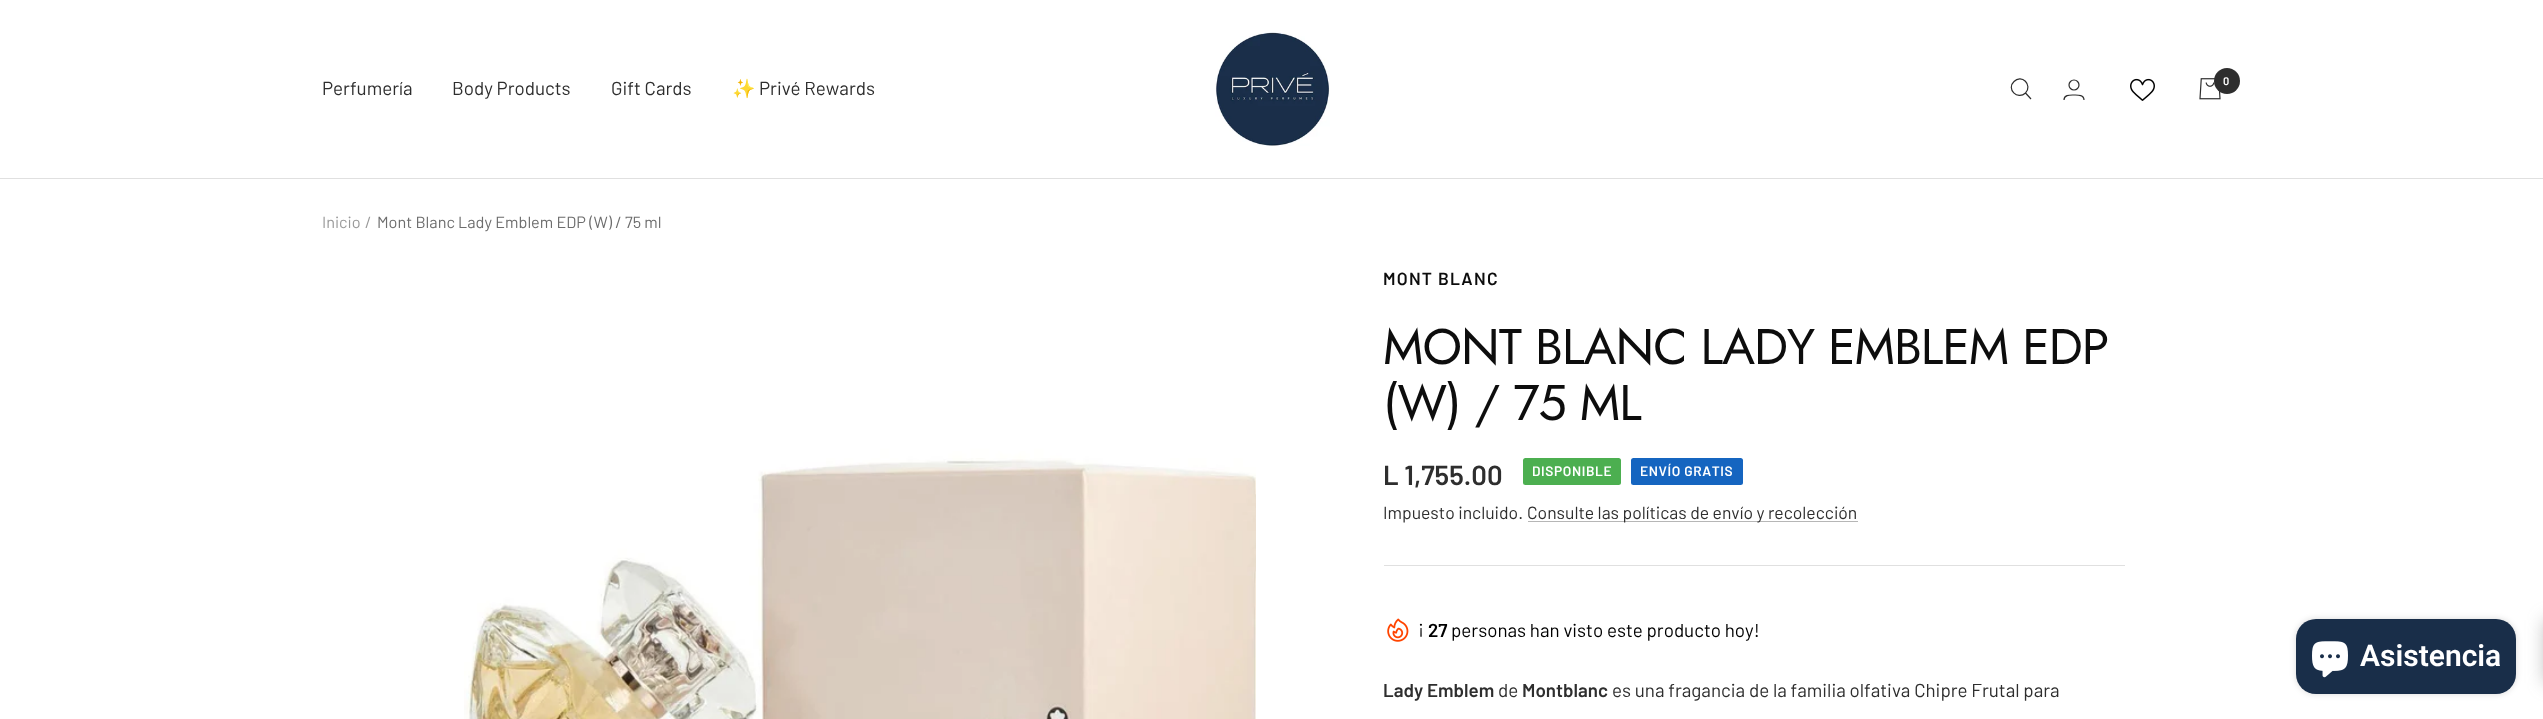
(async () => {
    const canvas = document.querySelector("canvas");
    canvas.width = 2543;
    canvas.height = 719;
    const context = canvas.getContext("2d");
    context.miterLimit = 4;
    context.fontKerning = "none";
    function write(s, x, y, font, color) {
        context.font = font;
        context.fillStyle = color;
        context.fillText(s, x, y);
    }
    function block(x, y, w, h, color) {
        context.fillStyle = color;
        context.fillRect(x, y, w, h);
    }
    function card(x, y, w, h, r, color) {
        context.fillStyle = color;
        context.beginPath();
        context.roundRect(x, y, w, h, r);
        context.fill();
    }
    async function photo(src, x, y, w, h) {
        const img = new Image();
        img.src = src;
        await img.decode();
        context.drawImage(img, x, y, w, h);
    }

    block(0, 0, 2543, 719, "rgb(255, 255, 255)");
    context.fillStyle = "rgb(224, 224, 224)";
    context.beginPath();
    context.moveTo(0, 178);
    context.lineTo(0, 179);
    context.lineTo(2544, 179);
    context.lineTo(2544, 1);
    context.lineTo(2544, 178);
    context.closePath();
    context.fill();
    write("Perfumería", 322, 95, "18.75px Barlow", "rgb(46, 46, 46)");
    write("Body Products", 452, 95, "18.75px Barlow", "rgb(46, 46, 46)");
    write("Gift Cards", 611, 95, "18.75px Barlow", "rgb(46, 46, 46)");
    write("✨", 732, 95, "18.75px Noto Color Emoji", "rgb(46, 46, 46)");
    write("Privé Rewards", 759, 95, "18.75px Barlow", "rgb(46, 46, 46)");
    await photo("media/1.png", 1215, 32, 115, 114);
    context.beginPath();
    context.moveTo(2025.5, 93);
    context.bezierCurveTo(2033, 85, 2021.5, 73.5, 2014, 81.5);
    context.bezierCurveTo(2006, 89, 2017.5, 100.5, 2025.5, 93);
    context.closePath();
    context.moveTo(2025.5, 93);
    context.lineTo(2031, 99);
    context.strokeStyle = "rgb(46, 46, 46)";
    context.lineWidth = 1.2;
    context.stroke();
    context.beginPath();
    context.arc(2074, 85, 5, 0, Math.PI * 2);
    context.stroke();
    context.beginPath();
    context.moveTo(2064, 100);
    context.bezierCurveTo(2064, 94.5, 2070, 95, 2074, 95);
    context.bezierCurveTo(2077.5, 95, 2084, 94.5, 2084, 100);
    context.stroke();
    await photo("media/2.png", 2130, 78, 25, 23);
    await photo("media/3.png", 2199, 78, 22, 22);
    context.beginPath();
    context.arc(2227, 81, 13, 0, Math.PI * 2);
    context.fill();
    write("0", 2223, 85, "600 11px Barlow", "rgb(255, 255, 255)");
    write("Inicio", 322, 228, "16.25px Barlow", "rgb(153, 153, 153)");
    write("/", 365, 228, "16.25px Barlow", "rgb(153, 153, 153)");
    write("Mont Blanc Lady Emblem EDP (W) / 75 ml", 377, 228, "16.25px Barlow", "rgb(109, 109, 109)");
    await photo("media/4.png", 464, 268, 792, 451);
    block(1384, 565, 741, 1, "rgb(224, 224, 224)");
    context.letterSpacing = "1.25px";
    write("MONT BLANC", 1383, 285, "600 17.5px Barlow", "rgb(13, 13, 13)");
    context.letterSpacing = "-1px";
    write("MONT BLANC LADY EMBLEM EDP", 1383, 364, "50px Jost", "rgb(13, 13, 13)");
    write("(W) / 75 ML", 1383, 420, "50px Jost", "rgb(13, 13, 13)");
    context.letterSpacing = "0px";
    write("L 1,755.00", 1383, 485, "600 27.5px Barlow", "rgb(46, 46, 46)");
    card(1523, 458, 98, 27, 2.5, "rgb(76, 175, 80)");
    context.letterSpacing = "0.6px";
    write("DISPONIBLE", 1532, 476, "600 13.75px Barlow", "rgb(255, 255, 255)");
    card(1631, 458, 112, 27, 2.5, "rgb(21, 101, 192)");
    write("ENVÍO GRATIS", 1640, 476, "600 13.75px Barlow", "rgb(255, 255, 255)");
    context.letterSpacing = "0px";
    write("Impuesto incluido.", 1383, 519, "17.5px Barlow", "rgb(46, 46, 46)");
    block(1528, 521, 330, 1, "rgb(182, 182, 182)");
    write("Consulte las políticas de envío y recolección", 1527, 519, "17.5px Barlow", "rgb(46, 46, 46)");
    await photo("media/5.png", 1387, 618, 22, 24);
    write("¡", 1418, 637, "18.75px Barlow", "rgb(0, 0, 0)");
    write("27", 1428, 637, "600 18.75px Barlow", "rgb(0, 0, 0)");
    write("personas han visto este producto hoy!", 1451, 637, "18.75px Barlow", "rgb(0, 0, 0)");
    write("Lady Emblem", 1383, 697, "600 18.75px Barlow", "rgb(46, 46, 46)");
    write("de", 1498, 697, "18.75px Barlow", "rgb(46, 46, 46)");
    write("Montblanc", 1522, 697, "600 18.75px Barlow", "rgb(46, 46, 46)");
    write("es una fragancia de la familia olfativa Chipre Frutal para", 1612, 697, "18.75px Barlow", "rgb(46, 46, 46)");
    context.fillStyle = "rgba(0, 0, 0, 0.15)";
    context.filter = "blur(3px)";
    context.beginPath();
    context.roundRect(2296, 619, 220, 75, 20);
    context.fill();
    context.filter = "none";
    card(2296, 619, 220, 75, 20, "rgb(25, 46, 73)");
    await photo("media/6.png", 2312, 641, 36, 37);
    write("Asistencia", 2360, 666, "600 30px Roboto", "rgb(255, 255, 255)");
    context.fillStyle = "rgba(117, 117, 117, 0.5)";
    context.filter = "blur(9px)";
    context.beginPath();
    context.rect(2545, 620, 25, 63);
    context.fill();
    context.filter = "none";
})();
